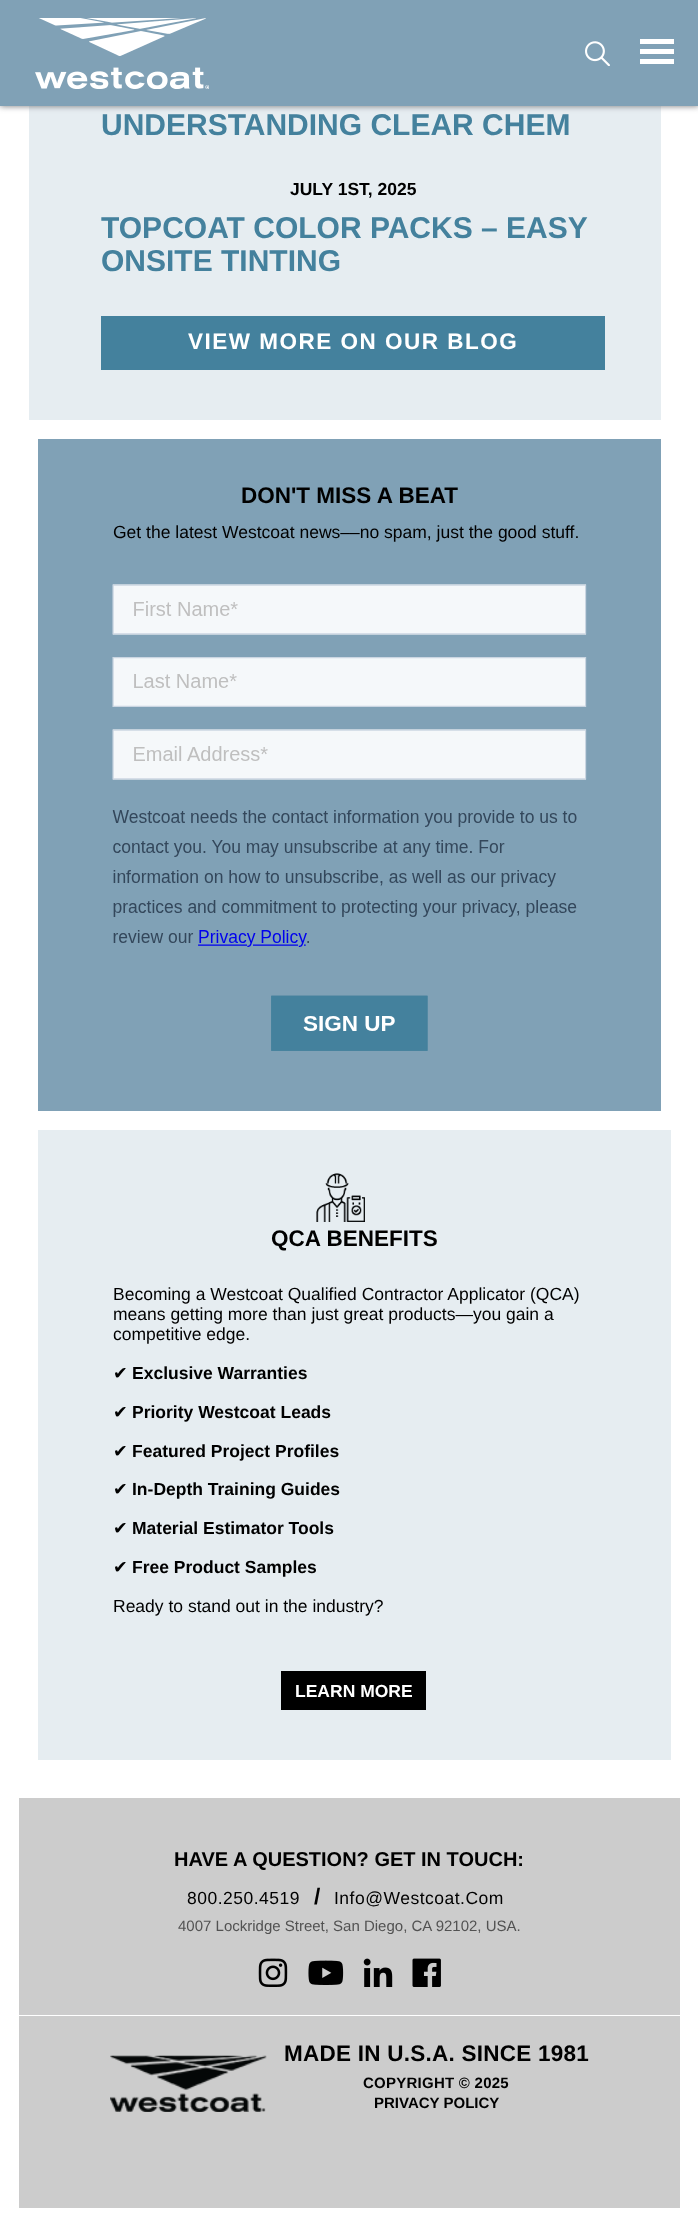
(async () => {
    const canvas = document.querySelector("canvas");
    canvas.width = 698;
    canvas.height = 2226;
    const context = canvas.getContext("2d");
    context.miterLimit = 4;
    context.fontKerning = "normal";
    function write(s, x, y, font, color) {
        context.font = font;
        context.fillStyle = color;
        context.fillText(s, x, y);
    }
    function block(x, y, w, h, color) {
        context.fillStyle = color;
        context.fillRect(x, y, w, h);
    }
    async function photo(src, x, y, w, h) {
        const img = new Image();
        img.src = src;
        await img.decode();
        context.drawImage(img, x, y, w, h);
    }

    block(0, 0, 698, 2226, "rgb(255, 255, 255)");
    block(29, 106, 632, 314, "rgb(230, 237, 241)");
    context.fillStyle = "rgb(118, 118, 121)";
    context.filter = "blur(3px)";
    context.beginPath();
    context.rect(0, 0, 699, 106);
    context.fill();
    context.filter = "none";
    block(0, 0, 698, 106, "rgb(128, 161, 182)");
    await photo("media/1.png", 35, 18, 174, 71);
    await photo("media/2.png", 585, 41, 25, 25);
    block(640, 39, 34, 5, "rgb(255, 255, 255)");
    block(640, 49, 34, 5, "rgb(255, 255, 255)");
    block(640, 59, 34, 5, "rgb(255, 255, 255)");
    write("UNDERSTANDING CLEAR CHEM", 101, 135, "bold 30px Liberation Sans", "rgb(68, 129, 157)");
    write("JULY 1ST, 2025", 290, 195, "bold 17.5px Liberation Sans", "rgb(0, 0, 0)");
    write("TOPCOAT COLOR PACKS – EASY", 101, 238, "bold 30px Liberation Sans", "rgb(68, 129, 157)");
    write("ONSITE TINTING", 101, 271, "bold 30px Liberation Sans", "rgb(68, 129, 157)");
    block(101, 316, 504, 54, "rgb(68, 129, 157)");
    context.letterSpacing = "1.5px";
    write("VIEW MORE ON OUR BLOG", 188, 349, "bold 22.5px Liberation Sans", "rgb(255, 255, 255)");
    block(38, 439, 623, 672, "rgb(128, 161, 182)");
    context.letterSpacing = "0px";
    write("DON'T MISS A BEAT", 241, 503, "bold 22.5px Liberation Sans", "rgb(0, 0, 0)");
    write("Get the latest Westcoat news––no spam, just the good stuff.", 113, 538, "17.5px Liberation Sans", "rgb(0, 0, 0)");
    await photo("media/3.png", 112, 584, 475, 467);
    block(38, 1130, 633, 630, "rgb(230, 237, 241)");
    await photo("media/4.png", 316, 1173, 49, 49);
    write("QCA BENEFITS", 271, 1246, "bold 22.5px Liberation Sans", "rgb(0, 0, 0)");
    write("Becoming a Westcoat Qualified Contractor Applicator (QCA)", 113, 1300, "17.5px Liberation Sans", "rgb(0, 0, 0)");
    write("means getting more than just great products—you gain a", 113, 1320, "17.5px Liberation Sans", "rgb(0, 0, 0)");
    write("competitive edge.", 113, 1340, "17.5px Liberation Sans", "rgb(0, 0, 0)");
    write("✔", 113, 1379, "17.5px DejaVu Sans", "rgb(0, 0, 0)");
    write("Exclusive Warranties", 132, 1379, "bold 17.5px Liberation Sans", "rgb(0, 0, 0)");
    write("✔", 113, 1418, "17.5px DejaVu Sans", "rgb(0, 0, 0)");
    write("Priority Westcoat Leads", 132, 1418, "bold 17.5px Liberation Sans", "rgb(0, 0, 0)");
    write("✔", 113, 1457, "17.5px DejaVu Sans", "rgb(0, 0, 0)");
    write("Featured Project Profiles", 132, 1457, "bold 17.5px Liberation Sans", "rgb(0, 0, 0)");
    write("✔", 113, 1495, "17.5px DejaVu Sans", "rgb(0, 0, 0)");
    write("In-Depth Training Guides", 132, 1495, "bold 17.5px Liberation Sans", "rgb(0, 0, 0)");
    write("✔", 113, 1534, "17.5px DejaVu Sans", "rgb(0, 0, 0)");
    write("Material Estimator Tools", 132, 1534, "bold 17.5px Liberation Sans", "rgb(0, 0, 0)");
    write("✔", 113, 1573, "17.5px DejaVu Sans", "rgb(0, 0, 0)");
    write("Free Product Samples", 132, 1573, "bold 17.5px Liberation Sans", "rgb(0, 0, 0)");
    write("Ready to stand out in the industry?", 113, 1612, "17.5px Liberation Sans", "rgb(0, 0, 0)");
    block(281, 1671, 145, 39, "rgb(0, 0, 0)");
    write("LEARN MORE", 295, 1697, "bold 17.5px Liberation Sans", "rgb(255, 255, 255)");
    block(19, 1798, 661, 410, "rgb(204, 204, 204)");
    write("HAVE A QUESTION? GET IN TOUCH:", 174, 1866, "bold 20px Liberation Sans", "rgb(0, 0, 0)");
    context.letterSpacing = "0.5px";
    write("800.250.4519", 187, 1904, "17.5px Liberation Sans", "rgb(0, 0, 0)");
    context.letterSpacing = "0px";
    write("/", 314, 1904, "bold 22.5px Liberation Sans", "rgb(0, 0, 0)");
    context.letterSpacing = "0.5px";
    write("Info@Westcoat.Com", 334, 1904, "17.5px Liberation Sans", "rgb(0, 0, 0)");
    context.letterSpacing = "0px";
    write("4007 Lockridge Street, San Diego, CA 92102, USA.", 178, 1931, "15px Liberation Sans", "rgb(82, 82, 82)");
    block(19, 2015, 661, 1, "rgb(255, 255, 255)");
    await photo("media/5.png", 258, 1958, 30, 29);
    await photo("media/6.png", 308, 1960, 36, 25);
    await photo("media/7.png", 363, 1958, 30, 29);
    await photo("media/8.png", 412, 1958, 29, 29);
    await photo("media/9.png", 110, 2055, 157, 57);
    context.letterSpacing = "0.25px";
    write("MADE IN U.S.A. SINCE 1981", 284, 2061, "bold 22.5px Liberation Sans", "rgb(0, 0, 0)");
    write("COPYRIGHT © 2025", 363, 2088, "bold 15px Liberation Sans", "rgb(0, 0, 0)");
    context.letterSpacing = "0px";
    write("PRIVACY POLICY", 374, 2108, "bold 15px Liberation Sans", "rgb(0, 0, 0)");
})();
